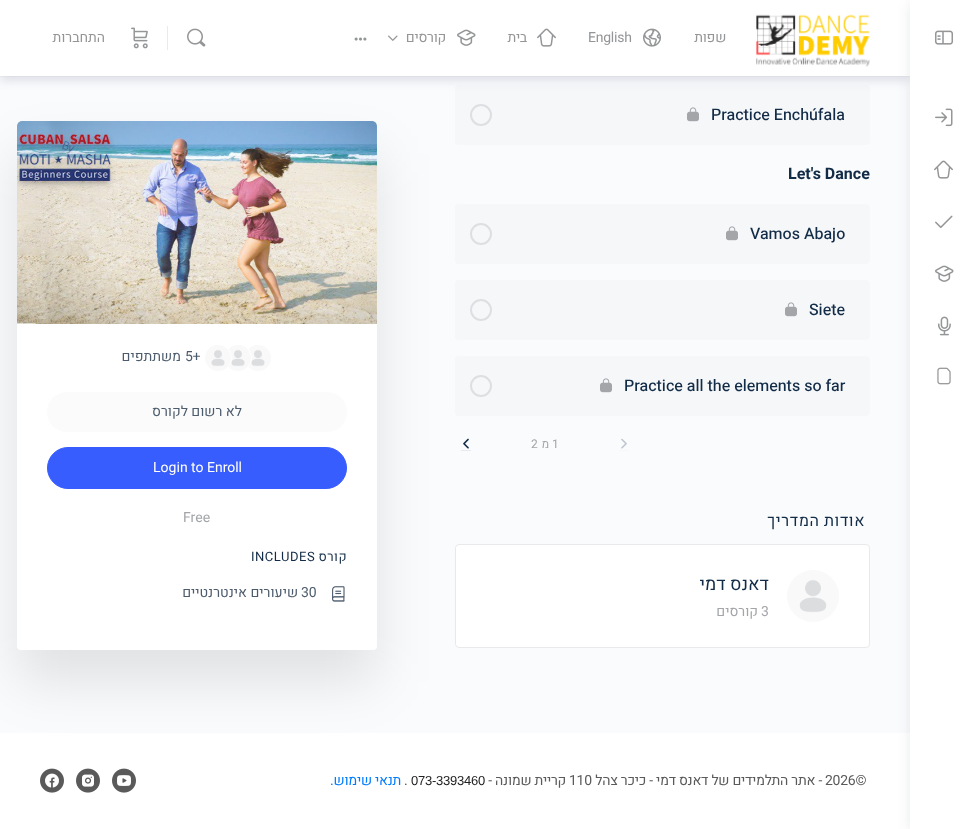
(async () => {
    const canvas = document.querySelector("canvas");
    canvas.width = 978;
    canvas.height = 829;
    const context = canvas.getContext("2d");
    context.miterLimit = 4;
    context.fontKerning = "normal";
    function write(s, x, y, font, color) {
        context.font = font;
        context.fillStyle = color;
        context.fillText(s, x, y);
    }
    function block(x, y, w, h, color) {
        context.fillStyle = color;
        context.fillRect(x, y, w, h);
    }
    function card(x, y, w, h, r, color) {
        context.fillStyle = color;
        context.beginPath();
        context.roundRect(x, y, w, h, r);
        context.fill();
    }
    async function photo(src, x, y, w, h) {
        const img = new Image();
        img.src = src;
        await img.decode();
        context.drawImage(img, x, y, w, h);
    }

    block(0, 0, 978, 829, "rgb(250, 251, 253)");
    card(455, 85, 415, 60, 4, "rgb(245, 247, 249)");
    context.fillStyle = "rgba(65, 71, 108, 0.15)";
    context.filter = "blur(5px)";
    context.beginPath();
    context.rect(0, 5, 910, 76);
    context.fill();
    context.filter = "none";
    card(455, 204, 415, 60, 4, "rgb(245, 247, 249)");
    card(455, 280, 415, 60, 4, "rgb(245, 247, 249)");
    card(455, 356, 415, 60, 4, "rgb(245, 247, 249)");
    context.fillStyle = "rgb(255, 255, 255)";
    context.beginPath();
    context.roundRect(455.5, 544.5, 414, 103, 3.5);
    context.fill();
    context.strokeStyle = "rgb(231, 233, 236)";
    context.stroke();
    block(0, 733, 910, 96, "rgb(255, 255, 255)");
    context.fillStyle = "rgba(0, 0, 0, 0.1)";
    context.filter = "blur(27px)";
    context.beginPath();
    context.roundRect(17, 153, 360, 529, 4);
    context.fill();
    context.filter = "none";
    block(0, 76, 910, 1, "rgba(139, 141, 157, 0.05)");
    block(0, 0, 910, 76, "rgb(255, 255, 255)");
    context.fillStyle = "rgba(18, 43, 70, 0.1)";
    context.filter = "blur(6.5px)";
    context.beginPath();
    context.rect(910, 3, 68, 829);
    context.fill();
    context.filter = "none";
    block(910, 0, 68, 829, "rgb(255, 255, 255)");
    await photo("media/1.png", 935, 30, 18, 15);
    await photo("media/2.png", 935, 108, 18, 19);
    await photo("media/3.png", 934, 160, 19, 19);
    await photo("media/4.png", 935, 215, 18, 13);
    await photo("media/5.png", 935, 265, 19, 17);
    await photo("media/6.png", 938, 316, 13, 20);
    await photo("media/7.png", 937, 367, 14, 18);
    await photo("media/8.png", 756, 14, 114, 53);
    context.letterSpacing = "-0.25px";
    context.direction = "rtl";
    write("שפות", 726, 42, "14px Heebo", "rgb(147, 149, 151)");
    await photo("media/9.png", 643, 28, 18, 19);
    context.direction = "ltr";
    write("English", 588, 42, "14px Heebo", "rgb(147, 149, 151)");
    await photo("media/3.png", 537, 28, 19, 19);
    context.direction = "rtl";
    write("בית", 527, 42, "14px Heebo", "rgb(147, 149, 151)");
    await photo("media/5.png", 457, 29, 19, 17);
    write("קורסים", 446, 42, "14px Heebo", "rgb(147, 149, 151)");
    await photo("media/10.png", 388, 35, 10, 6);
    await photo("media/11.png", 354, 37, 13, 4);
    await photo("media/12.png", 187, 28, 19, 19);
    block(167, 26, 1, 24, "rgb(233, 234, 234)");
    await photo("media/13.png", 131, 27, 17, 22);
    context.letterSpacing = "0px";
    write("התחברות", 105, 42, "14px Heebo", "rgb(147, 149, 151)");
    context.direction = "ltr";
    write("Practice Enchúfala", 711, 120, "500 16px Heebo", "rgb(18, 43, 70)");
    await photo("media/14.png", 687, 107, 12, 15);
    context.beginPath();
    context.arc(481, 115, 10, 0, Math.PI * 2);
    context.strokeStyle = "rgb(222, 223, 226)";
    context.lineWidth = 2;
    context.stroke();
    write("Let's Dance", 788, 179, "bold 16px Heebo", "rgb(18, 43, 70)");
    write("Vamos Abajo", 750, 239, "500 16px Heebo", "rgb(18, 43, 70)");
    await photo("media/14.png", 726, 226, 12, 15);
    context.beginPath();
    context.arc(481, 234, 10, 0, Math.PI * 2);
    context.stroke();
    write("Siete", 809, 315, "500 16px Heebo", "rgb(18, 43, 70)");
    await photo("media/14.png", 785, 302, 12, 15);
    context.beginPath();
    context.arc(481, 310, 10, 0, Math.PI * 2);
    context.stroke();
    write("Practice all the elements so far", 624, 391, "500 16px Heebo", "rgb(18, 43, 70)");
    await photo("media/14.png", 600, 378, 12, 15);
    context.beginPath();
    context.arc(481, 386, 10, 0, Math.PI * 2);
    context.stroke();
    block(619, 450, 10, 1, "rgb(245, 247, 249)");
    await photo("media/15.png", 621, 438, 6, 11);
    write("1", 552, 448, "12px Heebo", "rgb(163, 165, 169)");
    context.direction = "rtl";
    write("מ", 549, 448, "12px Heebo", "rgb(163, 165, 169)");
    context.direction = "ltr";
    write("2", 531, 448, "12px Heebo", "rgb(163, 165, 169)");
    block(461, 450, 10, 1, "rgb(231, 233, 236)");
    await photo("media/16.png", 463, 438, 6, 11);
    context.letterSpacing = "0.6px";
    context.direction = "rtl";
    write("אודות המדריך", 865, 526, "16px Heebo", "rgb(18, 43, 70)");
    await photo("media/17.png", 787, 570, 52, 52);
    context.letterSpacing = "0px";
    write("דאנס דמי", 769, 590, "18px Heebo", "rgb(18, 43, 70)");
    context.direction = "ltr";
    write("3", 761, 616, "14px Heebo", "rgb(163, 165, 169)");
    context.direction = "rtl";
    write("קורסים", 758, 616, "14px Heebo", "rgb(163, 165, 169)");
    await photo("media/18.png", 17, 121, 360, 203);
    context.fillStyle = "rgb(255, 255, 255)";
    context.beginPath();
    context.roundRect(17, 324, 360, 326, [0, 0, 4, 4]);
    context.fill();
    await photo("media/19.png", 247, 345, 24, 26);
    context.beginPath();
    context.arc(238, 358, 13.5, 0, Math.PI * 2);
    context.strokeStyle = "rgb(255, 255, 255)";
    context.lineWidth = 1;
    context.stroke();
    await photo("media/20.png", 227, 345, 21, 26);
    context.beginPath();
    context.arc(218, 358, 13.5, 0, Math.PI * 2);
    context.stroke();
    await photo("media/21.png", 205, 345, 23, 26);
    context.direction = "ltr";
    write("5+", 185, 361, "14px Heebo", "rgb(77, 92, 109)");
    context.direction = "rtl";
    write("משתתפים", 181, 361, "14px Heebo", "rgb(77, 92, 109)");
    card(47, 392, 300, 40, 20, "rgb(251, 251, 252)");
    write("לא רשום לקורס", 242, 416, "14px Heebo", "rgb(77, 92, 109)");
    context.fillStyle = "rgb(56, 93, 255)";
    context.beginPath();
    context.roundRect(47.5, 447.5, 299, 41, 20.5);
    context.fill();
    context.strokeStyle = "rgb(56, 93, 255)";
    context.stroke();
    context.direction = "ltr";
    write("Login to Enroll", 153, 472, "14px Heebo", "rgb(255, 255, 255)");
    write("Free", 183, 522, "14px Heebo", "rgb(163, 165, 169)");
    context.letterSpacing = "0.5px";
    context.direction = "rtl";
    write("קורס", 347, 561, "13px Heebo", "rgb(18, 43, 70)");
    context.direction = "ltr";
    write("INCLUDES", 251, 561, "13px Heebo", "rgb(18, 43, 70)");
    await photo("media/22.png", 332, 586, 13, 16);
    context.letterSpacing = "0px";
    write("30", 301, 597, "14px Heebo", "rgb(77, 92, 109)");
    context.direction = "rtl";
    write("שיעורים אינטרנטיים", 298, 597, "14px Heebo", "rgb(77, 92, 109)");
    context.letterSpacing = "-0.25px";
    context.direction = "ltr";
    write("2026©", 825, 785, "14px Heebo", "rgb(90, 90, 90)");
    context.direction = "rtl";
    write("- אתר התלמידים של דאנס דמי - כיכר צהל", 822, 785, "14px Heebo", "rgb(90, 90, 90)");
    context.direction = "ltr";
    write("110", 569, 785, "14px Heebo", "rgb(90, 90, 90)");
    context.direction = "rtl";
    write("קריית שמונה -", 566, 785, "14px Heebo", "rgb(90, 90, 90)");
    context.direction = "ltr";
    write("073-3393460", 411, 785, "13px Liberation Sans", "rgb(34, 34, 34)");
    write(".", 404, 785, "14px Heebo", "rgb(90, 90, 90)");
    context.direction = "rtl";
    write("תנאי שימוש.", 401, 785, "14px Heebo", "rgb(0, 124, 255)");
    await photo("media/23.png", 112, 768, 24, 25);
    await photo("media/24.png", 76, 768, 24, 25);
    await photo("media/25.png", 40, 768, 24, 25);
})();
